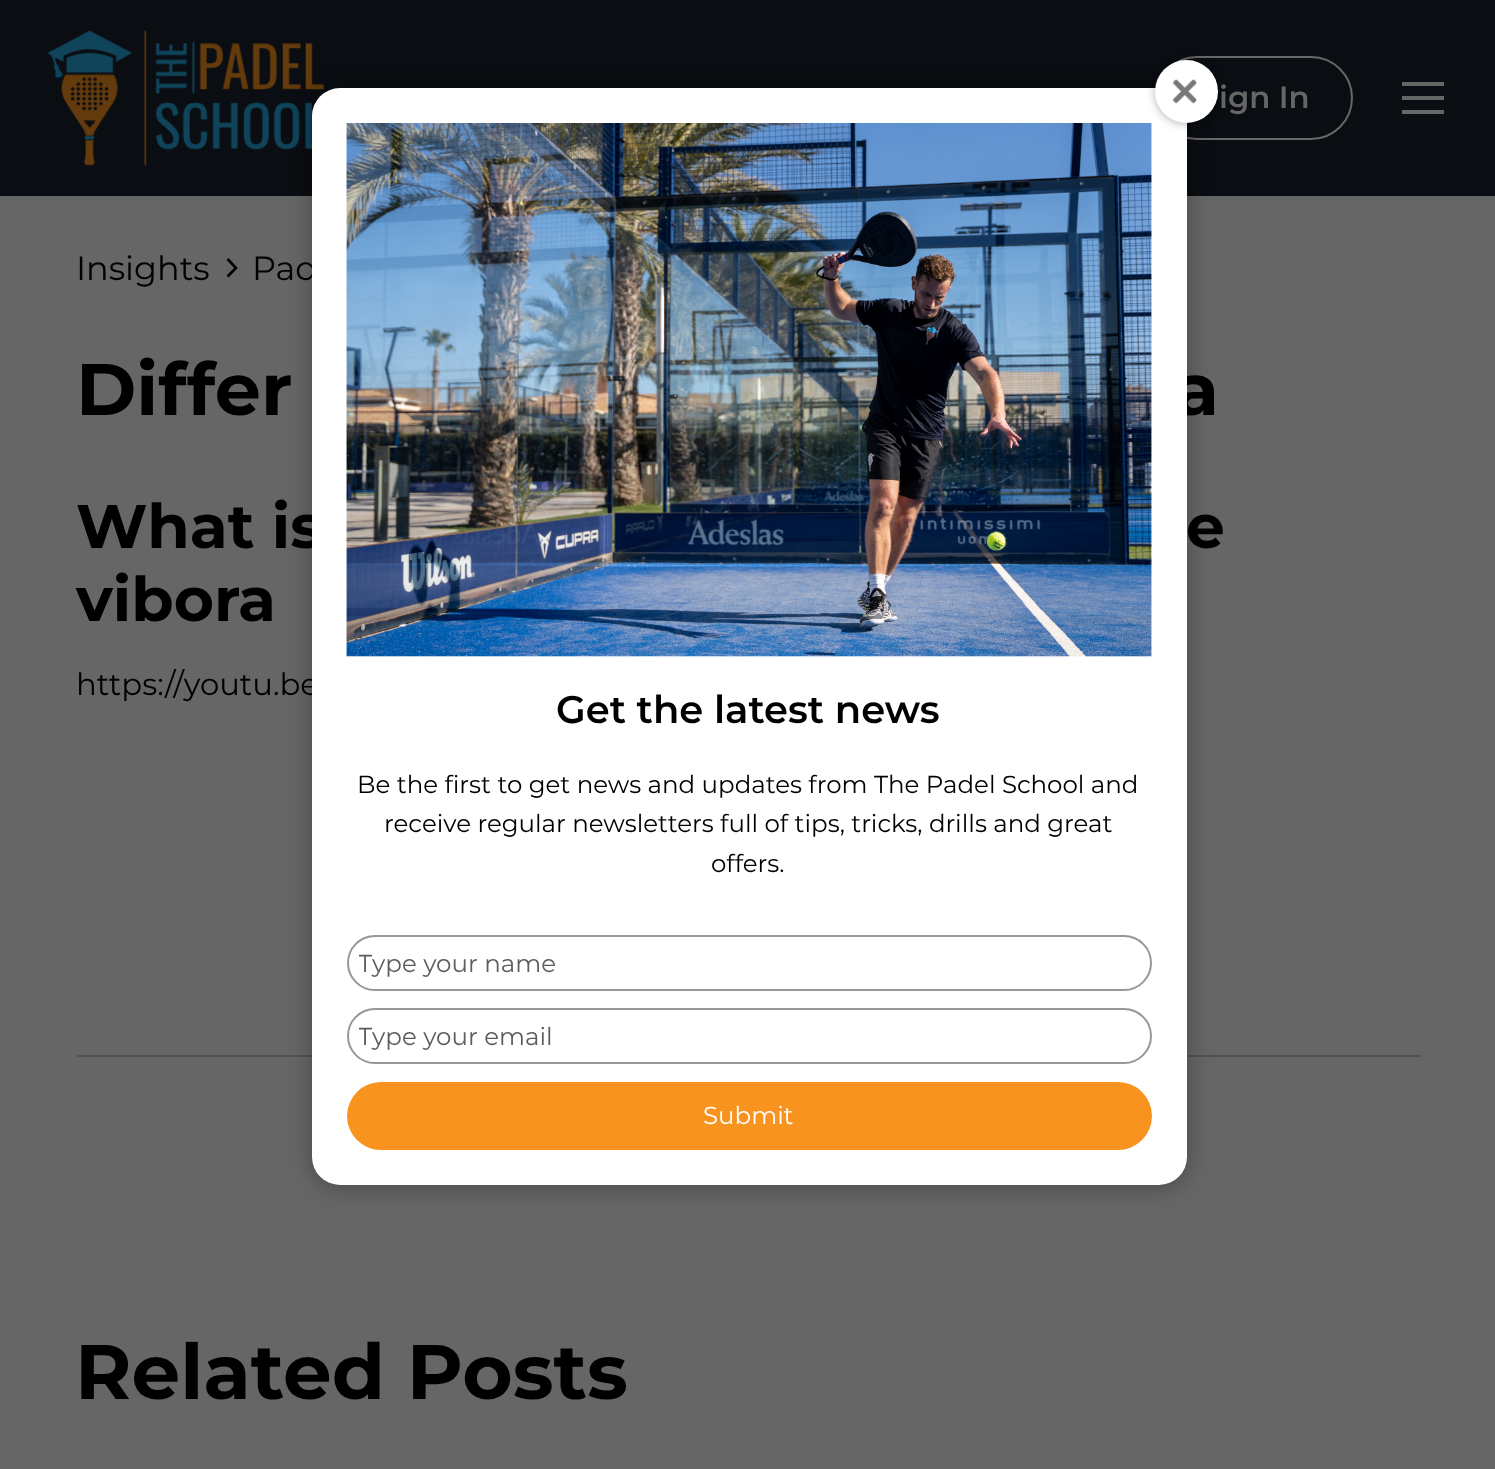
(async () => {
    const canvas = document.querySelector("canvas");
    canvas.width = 1495;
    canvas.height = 1469;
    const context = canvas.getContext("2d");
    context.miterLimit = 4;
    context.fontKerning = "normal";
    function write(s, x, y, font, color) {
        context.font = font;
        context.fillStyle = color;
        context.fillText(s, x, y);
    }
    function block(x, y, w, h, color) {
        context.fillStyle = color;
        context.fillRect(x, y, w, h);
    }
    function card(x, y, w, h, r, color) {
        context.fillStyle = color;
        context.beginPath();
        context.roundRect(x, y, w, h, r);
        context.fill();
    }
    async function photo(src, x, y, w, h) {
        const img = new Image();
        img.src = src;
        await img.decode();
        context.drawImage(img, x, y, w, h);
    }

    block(0, 0, 1495, 1469, "rgb(102, 102, 102)");
    block(0, 0, 1495, 196, "rgb(10, 13, 17)");
    await photo("media/1.png", 47, 30, 277, 136);
    context.beginPath();
    context.roundRect(1156, 57, 196, 82, 41);
    context.strokeStyle = "rgb(102, 102, 102)";
    context.lineWidth = 2;
    context.stroke();
    write("ign In", 1219, 108, "600 30.75px Montserrat", "rgb(102, 102, 102)");
    block(1402, 82, 42, 4, "rgb(102, 102, 102)");
    block(1402, 96, 42, 4, "rgb(102, 102, 102)");
    block(1402, 110, 42, 4, "rgb(102, 102, 102)");
    write("Insights", 76, 280, "100 33.5px Montserrat", "rgb(0, 0, 0)");
    context.beginPath();
    context.moveTo(227.5, 259);
    context.lineTo(236, 268);
    context.lineTo(227.5, 276.5);
    context.strokeStyle = "rgb(0, 0, 0)";
    context.lineWidth = 2.6;
    context.stroke();
    write("Pad", 252, 280, "100 33.5px Montserrat", "rgb(0, 0, 0)");
    write("Differ", 76, 415, "bold 73px Montserrat", "rgb(0, 0, 0)");
    write("a", 1174, 415, "bold 73px Montserrat", "rgb(0, 0, 0)");
    write("What is", 76, 548, "bold 61.5px Montserrat", "rgb(0, 0, 0)");
    write("e", 1186, 548, "bold 61.5px Montserrat", "rgb(0, 0, 0)");
    write("vibora", 76, 621, "bold 61.5px Montserrat", "rgb(0, 0, 0)");
    write("https://youtu.be", 76, 695, "100 30.75px Montserrat", "rgb(0, 0, 0)");
    block(77, 1055, 1344, 2, "rgb(82, 82, 82)");
    write("Related Posts", 75, 1399, "bold 77px Montserrat", "rgb(0, 0, 0)");
    context.fillStyle = "rgba(0, 0, 0, 0.3)";
    context.filter = "blur(11.5px)";
    context.beginPath();
    context.roundRect(312, 89, 875, 1098, 28);
    context.fill();
    context.filter = "none";
    card(312, 88, 875, 1097, 28, "rgb(255, 255, 255)");
    await photo("media/3.png", 346, 123, 806, 534);
    context.fillStyle = "rgba(0, 0, 0, 0.3)";
    context.filter = "blur(4.5px)";
    context.beginPath();
    context.roundRect(1155, 61, 63, 63, 31.5);
    context.fill();
    context.filter = "none";
    context.fillStyle = "rgb(255, 255, 255)";
    context.beginPath();
    context.arc(1186.5, 91.5, 31.5, 0, Math.PI * 2);
    context.fill();
    await photo("media/2.png", 1172, 79, 25, 25);
    write("Get the latest news", 556, 723, "600 38.5px Montserrat", "rgb(0, 0, 0)");
    write("Be the first to get news and updates from The Padel School and", 357, 793, "100 24.5px Montserrat", "rgb(0, 0, 0)");
    write("receive regular newsletters full of tips, tricks, drills and great", 384, 832, "100 24.5px Montserrat", "rgb(0, 0, 0)");
    write("offers.", 711, 872, "100 24.5px Montserrat", "rgb(0, 0, 0)");
    context.beginPath();
    context.roundRect(348, 936, 803, 54, 27);
    context.strokeStyle = "rgb(151, 151, 151)";
    context.lineWidth = 2;
    context.stroke();
    context.save();
    context.beginPath();
    context.rect(359, 947, 780, 31);
    context.clip();
    write("Type your name", 358, 972, "100 24.5px Montserrat", "rgb(93, 93, 93)");
    context.restore();
    context.beginPath();
    context.roundRect(348, 1009, 803, 54, 27);
    context.stroke();
    context.save();
    context.beginPath();
    context.rect(359, 1020, 780, 32);
    context.clip();
    write("Type your email", 358, 1045, "100 24.5px Montserrat", "rgb(93, 93, 93)");
    context.restore();
    card(347, 1082, 805, 68, 34, "rgb(248, 147, 31)");
    write("Submit", 703, 1124, "100 24.5px Montserrat", "rgb(255, 255, 255)");
})();
